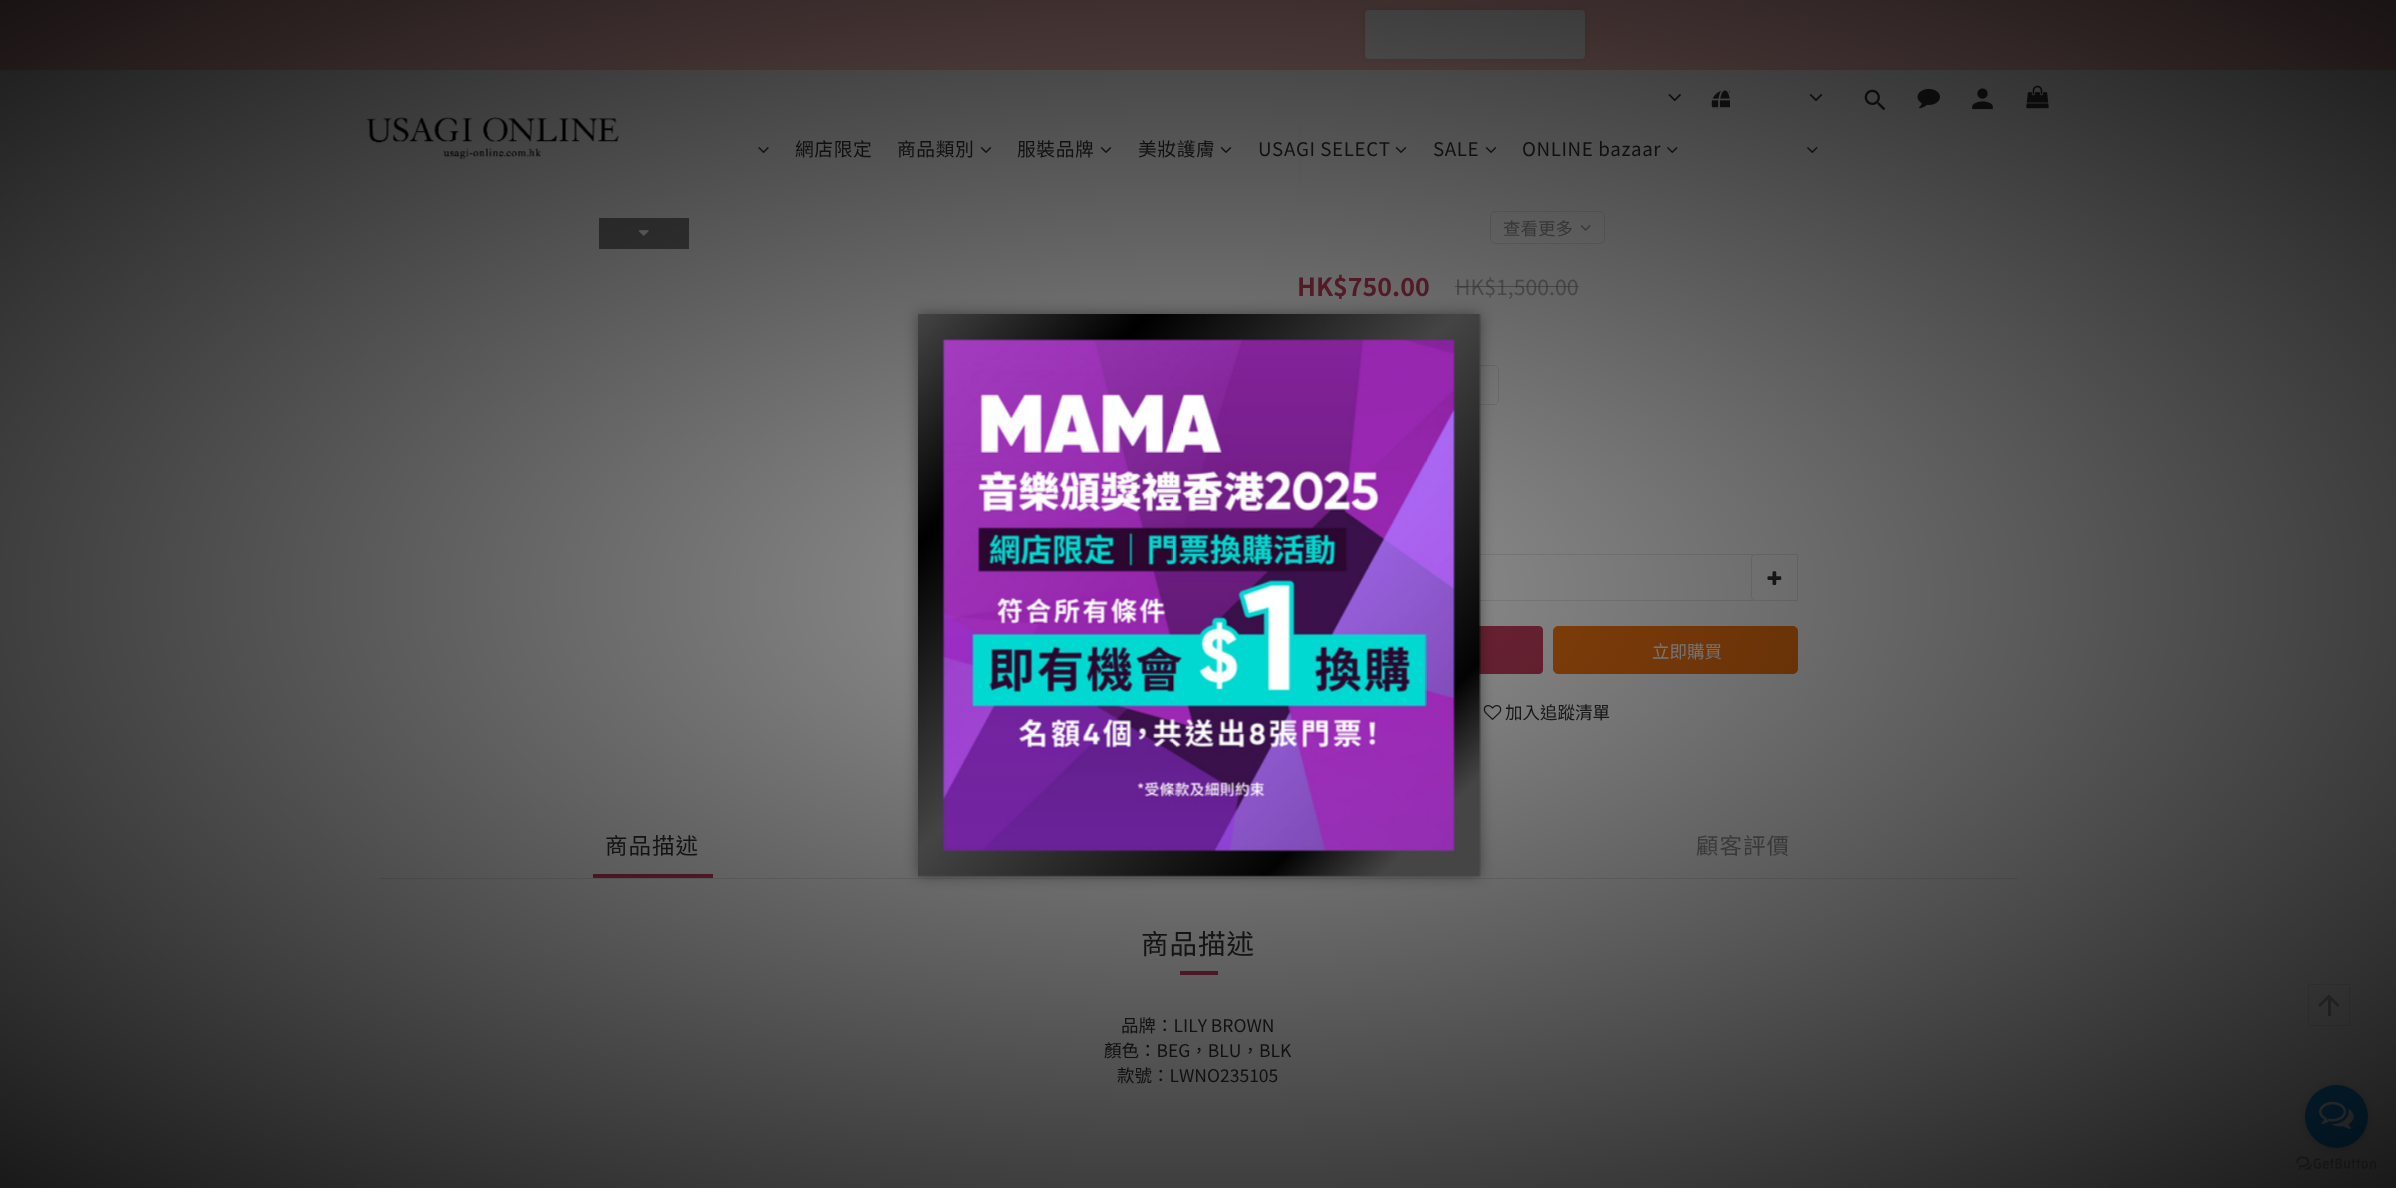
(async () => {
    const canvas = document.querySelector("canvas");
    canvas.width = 2396;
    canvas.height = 1188;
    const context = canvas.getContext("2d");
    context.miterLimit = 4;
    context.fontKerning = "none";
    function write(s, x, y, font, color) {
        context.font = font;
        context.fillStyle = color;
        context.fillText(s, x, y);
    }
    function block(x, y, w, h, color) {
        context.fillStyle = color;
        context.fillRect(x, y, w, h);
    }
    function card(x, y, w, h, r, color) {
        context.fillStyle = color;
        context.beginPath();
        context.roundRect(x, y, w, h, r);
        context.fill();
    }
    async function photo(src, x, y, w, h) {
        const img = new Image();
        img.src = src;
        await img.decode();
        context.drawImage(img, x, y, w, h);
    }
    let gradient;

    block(0, 0, 2396, 1188, "rgb(255, 255, 255)");
    block(0, 0, 2396, 70, "rgb(255, 193, 193)");
    context.fillStyle = "rgba(0, 0, 0, 0.1)";
    context.filter = "blur(3px)";
    context.beginPath();
    context.roundRect(1365, 10, 220, 49, 4);
    context.fill();
    context.filter = "none";
    card(1365, 10, 220, 49, 4, "rgb(255, 255, 255)");
    block(1298, 96, 500, 1, "rgb(230, 230, 230)");
    block(1298, 98, 500, 1, "rgb(238, 238, 238)");
    block(1298, 124, 4, 62, "rgb(199, 64, 96)");
    context.beginPath();
    context.moveTo(1329, 152);
    context.lineTo(1421, 152);
    context.strokeStyle = "rgb(153, 153, 153)";
    context.lineWidth = 1.2;
    context.setLineDash([3.75, 2.59]);
    context.stroke();
    block(1298, 96, 500, 90, "rgba(255, 255, 255, 0.98)");
    await photo("media/2.png", 1668, 94, 13, 8);
    await photo("media/3.png", 1711, 90, 19, 19);
    await photo("media/4.png", 1809, 94, 14, 8);
    await photo("media/5.png", 1864, 89, 22, 22);
    await photo("media/6.png", 1917, 88, 23, 21);
    await photo("media/7.png", 1972, 88, 21, 22);
    await photo("media/8.png", 2026, 85, 23, 24);
    await photo("media/9.png", 366, 117, 253, 43);
    await photo("media/10.png", 758, 147, 11, 6);
    context.letterSpacing = "0.6px";
    write("網店限定", 795, 156, "18.75px Noto Sans TC", "rgb(51, 51, 51)");
    write("商品類別", 897, 156, "18.75px Noto Sans TC", "rgb(51, 51, 51)");
    await photo("media/11.png", 980, 147, 12, 6);
    write("服裝品牌", 1017, 156, "18.75px Noto Sans TC", "rgb(51, 51, 51)");
    await photo("media/11.png", 1100, 147, 12, 6);
    write("美妝護膚", 1138, 156, "18.75px Noto Sans TC", "rgb(51, 51, 51)");
    await photo("media/11.png", 1220, 147, 12, 6);
    write("USAGI SELECT", 1258, 156, "18.75px Noto Sans TC", "rgb(51, 51, 51)");
    await photo("media/12.png", 1395, 147, 12, 6);
    write("SALE", 1433, 156, "18.75px Noto Sans TC", "rgb(51, 51, 51)");
    await photo("media/13.png", 1485, 147, 12, 6);
    write("ONLINE bazaar", 1522, 156, "18.75px Noto Sans TC", "rgb(51, 51, 51)");
    await photo("media/14.png", 1667, 147, 11, 6);
    await photo("media/14.png", 1807, 147, 11, 6);
    block(599, 218, 90, 31, "rgb(128, 128, 128)");
    await photo("media/15.png", 638, 230, 11, 6);
    context.beginPath();
    context.roundRect(1490.5, 211.5, 114, 32, 4.5);
    context.strokeStyle = "rgb(230, 230, 230)";
    context.lineWidth = 1;
    context.setLineDash([]);
    context.stroke();
    context.letterSpacing = "0px";
    write("查看更多", 1503, 235, "17.5px Noto Sans TC", "rgb(153, 153, 153)");
    await photo("media/16.png", 1580, 225, 11, 6);
    write("HK$750.00", 1297, 296, "bold 25px Noto Sans TC", "rgb(199, 64, 96)");
    write("HK$1,500.00", 1455, 295, "21.25px Noto Sans TC", "rgb(179, 179, 179)");
    block(1455, 286, 124, 1, "rgba(128, 128, 128, 0.6)");
    context.beginPath();
    context.roundRect(1440.5, 365.5, 58, 39, 4.5);
    context.stroke();
    block(1479, 554, 274, 1, "rgb(230, 230, 230)");
    block(1479, 600, 274, 1, "rgb(230, 230, 230)");
    context.fillStyle = "rgb(255, 255, 255)";
    context.beginPath();
    context.roundRect(1751.5, 554.5, 46, 46, [3.5, 0, 0, 3.5]);
    context.fill();
    context.stroke();
    await photo("media/17.png", 1767, 571, 15, 14);
    context.fillStyle = "rgb(199, 64, 96)";
    context.beginPath();
    context.roundRect(1298.5, 626.5, 244, 47, 3.5);
    context.fill();
    context.strokeStyle = "rgb(199, 64, 96)";
    context.stroke();
    context.fillStyle = "rgb(251, 120, 19)";
    context.beginPath();
    context.roundRect(1553.5, 626.5, 244, 47, 4.5);
    context.fill();
    context.strokeStyle = "rgb(251, 120, 19)";
    context.stroke();
    write("立即購買", 1652, 658, "17.5px Noto Sans TC", "rgb(255, 255, 255)");
    await photo("media/18.png", 1483, 705, 19, 15);
    write("加入追蹤清單", 1505, 719, "17.5px Noto Sans TC", "rgb(51, 51, 51)");
    block(380, 878, 1638, 1, "rgb(230, 230, 230)");
    context.letterSpacing = "1px";
    write("商品描述", 605, 854, "22.5px Noto Sans TC", "rgb(51, 51, 51)");
    block(593, 874, 120, 4, "rgb(199, 64, 96)");
    write("顧客評價", 1696, 854, "22.5px Noto Sans TC", "rgb(153, 153, 153)");
    write("商品描述", 1141, 954, "27.5px Noto Sans TC", "rgb(51, 51, 51)");
    block(1180, 971, 38, 4, "rgb(199, 64, 96)");
    context.letterSpacing = "0px";
    write("品牌：LILY BROWN", 1121, 1032, "17.5px Noto Sans TC", "rgb(51, 51, 51)");
    write("顏色：BEG，BLU，BLK", 1104, 1057, "17.5px Noto Sans TC", "rgb(51, 51, 51)");
    write("款號：LWNO235105", 1117, 1082, "17.5px Noto Sans TC", "rgb(51, 51, 51)");
    context.strokeStyle = "rgb(230, 230, 230)";
    context.strokeRect(2308.5, 984.5, 41, 41);
    context.fillStyle = "rgb(173, 173, 173)";
    context.beginPath();
    context.moveTo(2329, 994.5);
    context.lineTo(2339.5, 1005);
    context.lineTo(2337.5, 1007);
    context.lineTo(2329, 998);
    context.closePath();
    context.moveTo(2318, 1005);
    context.lineTo(2329, 994.5);
    context.lineTo(2329, 998);
    context.lineTo(2320, 1007);
    context.closePath();
    context.fill();
    block(2328, 999, 3, 17, "rgba(153, 153, 153, 0.8)");
    await photo("media/20.png", 2296, 1156, 80, 14);
    context.fillStyle = "rgba(136, 136, 136, 0.4)";
    context.filter = "blur(4.5px)";
    context.beginPath();
    context.roundRect(2305, 1086, 63, 63, 31.5);
    context.fill();
    context.filter = "none";
    context.fillStyle = "rgb(18, 155, 244)";
    context.beginPath();
    context.arc(2336.5, 1116.5, 31.5, 0, Math.PI * 2);
    context.fill();
    await photo("media/19.png", 2319, 1101, 35, 28);
    gradient = context.createRadialGradient(1198, 1196.48, 0, 1198, 1196.48, 1694);
    gradient.addColorStop(0, "rgba(0, 0, 0, 0.4)");
    gradient.addColorStop(1, "rgba(0, 0, 0, 0.9)");
    context.fillStyle = gradient;
    context.beginPath();
    context.rect(0, 0, 2396, 1188);
    context.save();
    context.clip();
    context.scale(1, 841 / 1694);
    context.fillRect(0, 0, 2396, 2393);
    context.restore();
    context.fillStyle = "rgba(0, 0, 0, 0.4)";
    context.filter = "blur(7px)";
    context.beginPath();
    context.roundRect(918, 314, 562, 562, 2.5);
    context.fill();
    context.filter = "none";
    await photo("media/1.png", 918, 314, 563, 563);
})();
